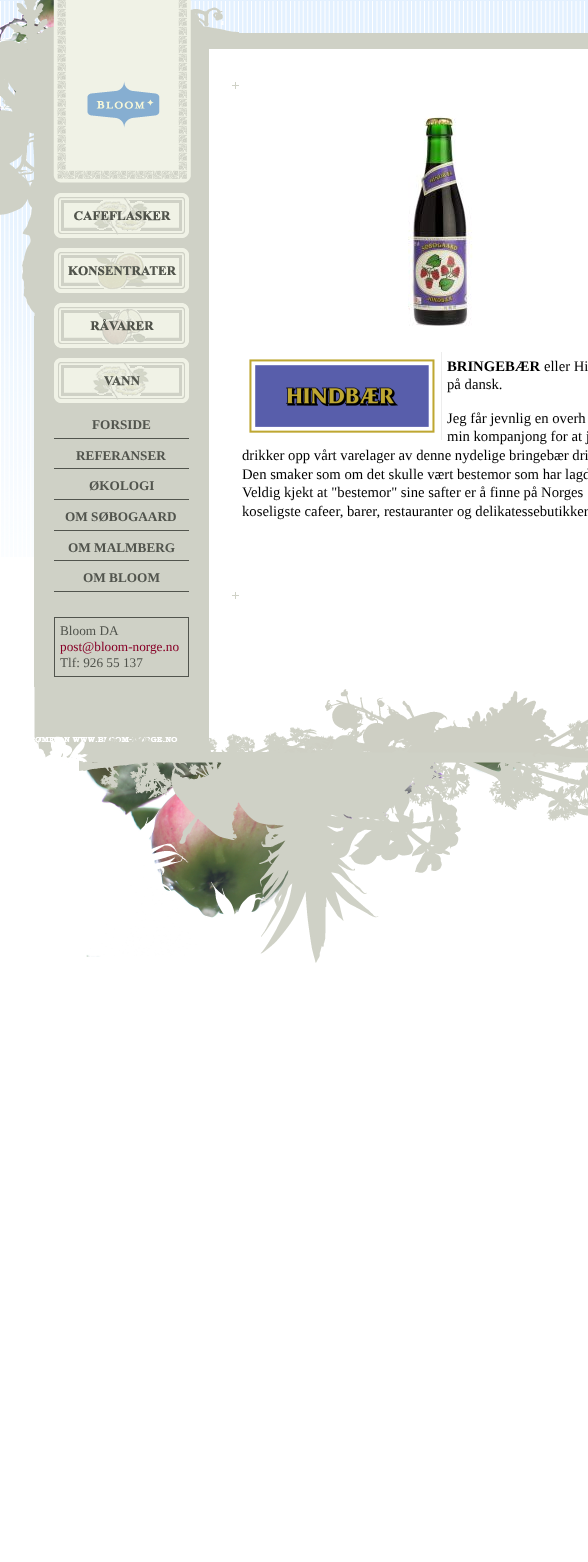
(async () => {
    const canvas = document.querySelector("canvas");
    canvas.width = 588;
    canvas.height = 1562;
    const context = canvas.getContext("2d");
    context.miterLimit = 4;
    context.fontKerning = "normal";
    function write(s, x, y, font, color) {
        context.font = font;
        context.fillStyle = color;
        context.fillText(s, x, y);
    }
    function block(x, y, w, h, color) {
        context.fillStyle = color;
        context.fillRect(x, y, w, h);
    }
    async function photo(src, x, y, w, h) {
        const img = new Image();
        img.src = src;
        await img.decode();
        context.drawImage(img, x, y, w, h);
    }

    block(0, 0, 588, 1562, "rgb(255, 255, 255)");
    await photo("media/1.png", 0, 0, 588, 557);
    await photo("media/2.png", 0, 0, 239, 606);
    block(34, 316, 175, 371, "rgb(207, 209, 198)");
    await photo("media/3.png", 54, 193, 135, 45);
    await photo("media/4.png", 54, 248, 135, 45);
    await photo("media/5.png", 54, 303, 135, 45);
    await photo("media/6.png", 54, 358, 135, 45);
    block(54, 438, 135, 1, "rgb(81, 84, 77)");
    write("FORSIDE", 92, 429, "bold 13.25px Liberation Serif", "rgb(81, 84, 77)");
    block(54, 468, 135, 1, "rgb(81, 84, 77)");
    write("REFERANSER", 76, 460, "bold 13.25px Liberation Serif", "rgb(81, 84, 77)");
    block(54, 499, 135, 1, "rgb(81, 84, 77)");
    write("ØKOLOGI", 89, 490, "bold 13.25px Liberation Serif", "rgb(81, 84, 77)");
    block(54, 530, 135, 1, "rgb(81, 84, 77)");
    write("OM SØBOGAARD", 65, 521, "bold 13.25px Liberation Serif", "rgb(81, 84, 77)");
    block(54, 560, 135, 1, "rgb(81, 84, 77)");
    write("OM MALMBERG", 68, 552, "bold 13.25px Liberation Serif", "rgb(81, 84, 77)");
    block(54, 591, 135, 1, "rgb(81, 84, 77)");
    write("OM BLOOM", 83, 582, "bold 13.25px Liberation Serif", "rgb(81, 84, 77)");
    context.strokeStyle = "rgb(81, 84, 77)";
    context.strokeRect(54.5, 617.5, 134, 59);
    write("Bloom DA", 60, 635, "13.25px Liberation Serif", "rgb(81, 84, 77)");
    write("post@bloom-norge.no", 60, 651, "13.25px Liberation Serif", "rgb(135, 0, 39)");
    write("Tlf: 926 55 137", 60, 667, "13.25px Liberation Serif", "rgb(81, 84, 77)");
    block(239, 49, 349, 508, "rgb(255, 255, 255)");
    block(239, 33, 349, 16, "rgb(207, 209, 198)");
    await photo("media/7.png", 408, 116, 65, 210);
    await photo("media/8.png", 249, 352, 193, 88);
    write("BRINGEBÆR", 447, 371, "bold 14.7px Liberation Serif", "rgb(0, 0, 0)");
    write("eller Hi", 544, 371, "14.7px Liberation Serif", "rgb(0, 0, 0)");
    write("på dansk.", 447, 389, "14.7px Liberation Serif", "rgb(0, 0, 0)");
    write("Jeg får jevnlig en overh", 447, 423, "14.7px Liberation Serif", "rgb(0, 0, 0)");
    write("min kompanjong for at j", 447, 441, "14.7px Liberation Serif", "rgb(0, 0, 0)");
    write("drikker opp vårt varelager av denne nydelige bringebær dri", 242, 460, "14.7px Liberation Serif", "rgb(0, 0, 0)");
    write("Den smaker som om det skulle vært bestemor som har lagd", 242, 479, "14.7px Liberation Serif", "rgb(0, 0, 0)");
    write("Veldig kjekt at \"bestemor\" sine safter er å finne på Norges", 242, 497, "14.7px Liberation Serif", "rgb(0, 0, 0)");
    write("koseligste cafeer, barer, restauranter og delikatessebutikker", 242, 516, "14.7px Liberation Serif", "rgb(0, 0, 0)");
    await photo("media/9.png", 34, 687, 205, 270);
    await photo("media/10.png", 239, 689, 349, 274);
})();
